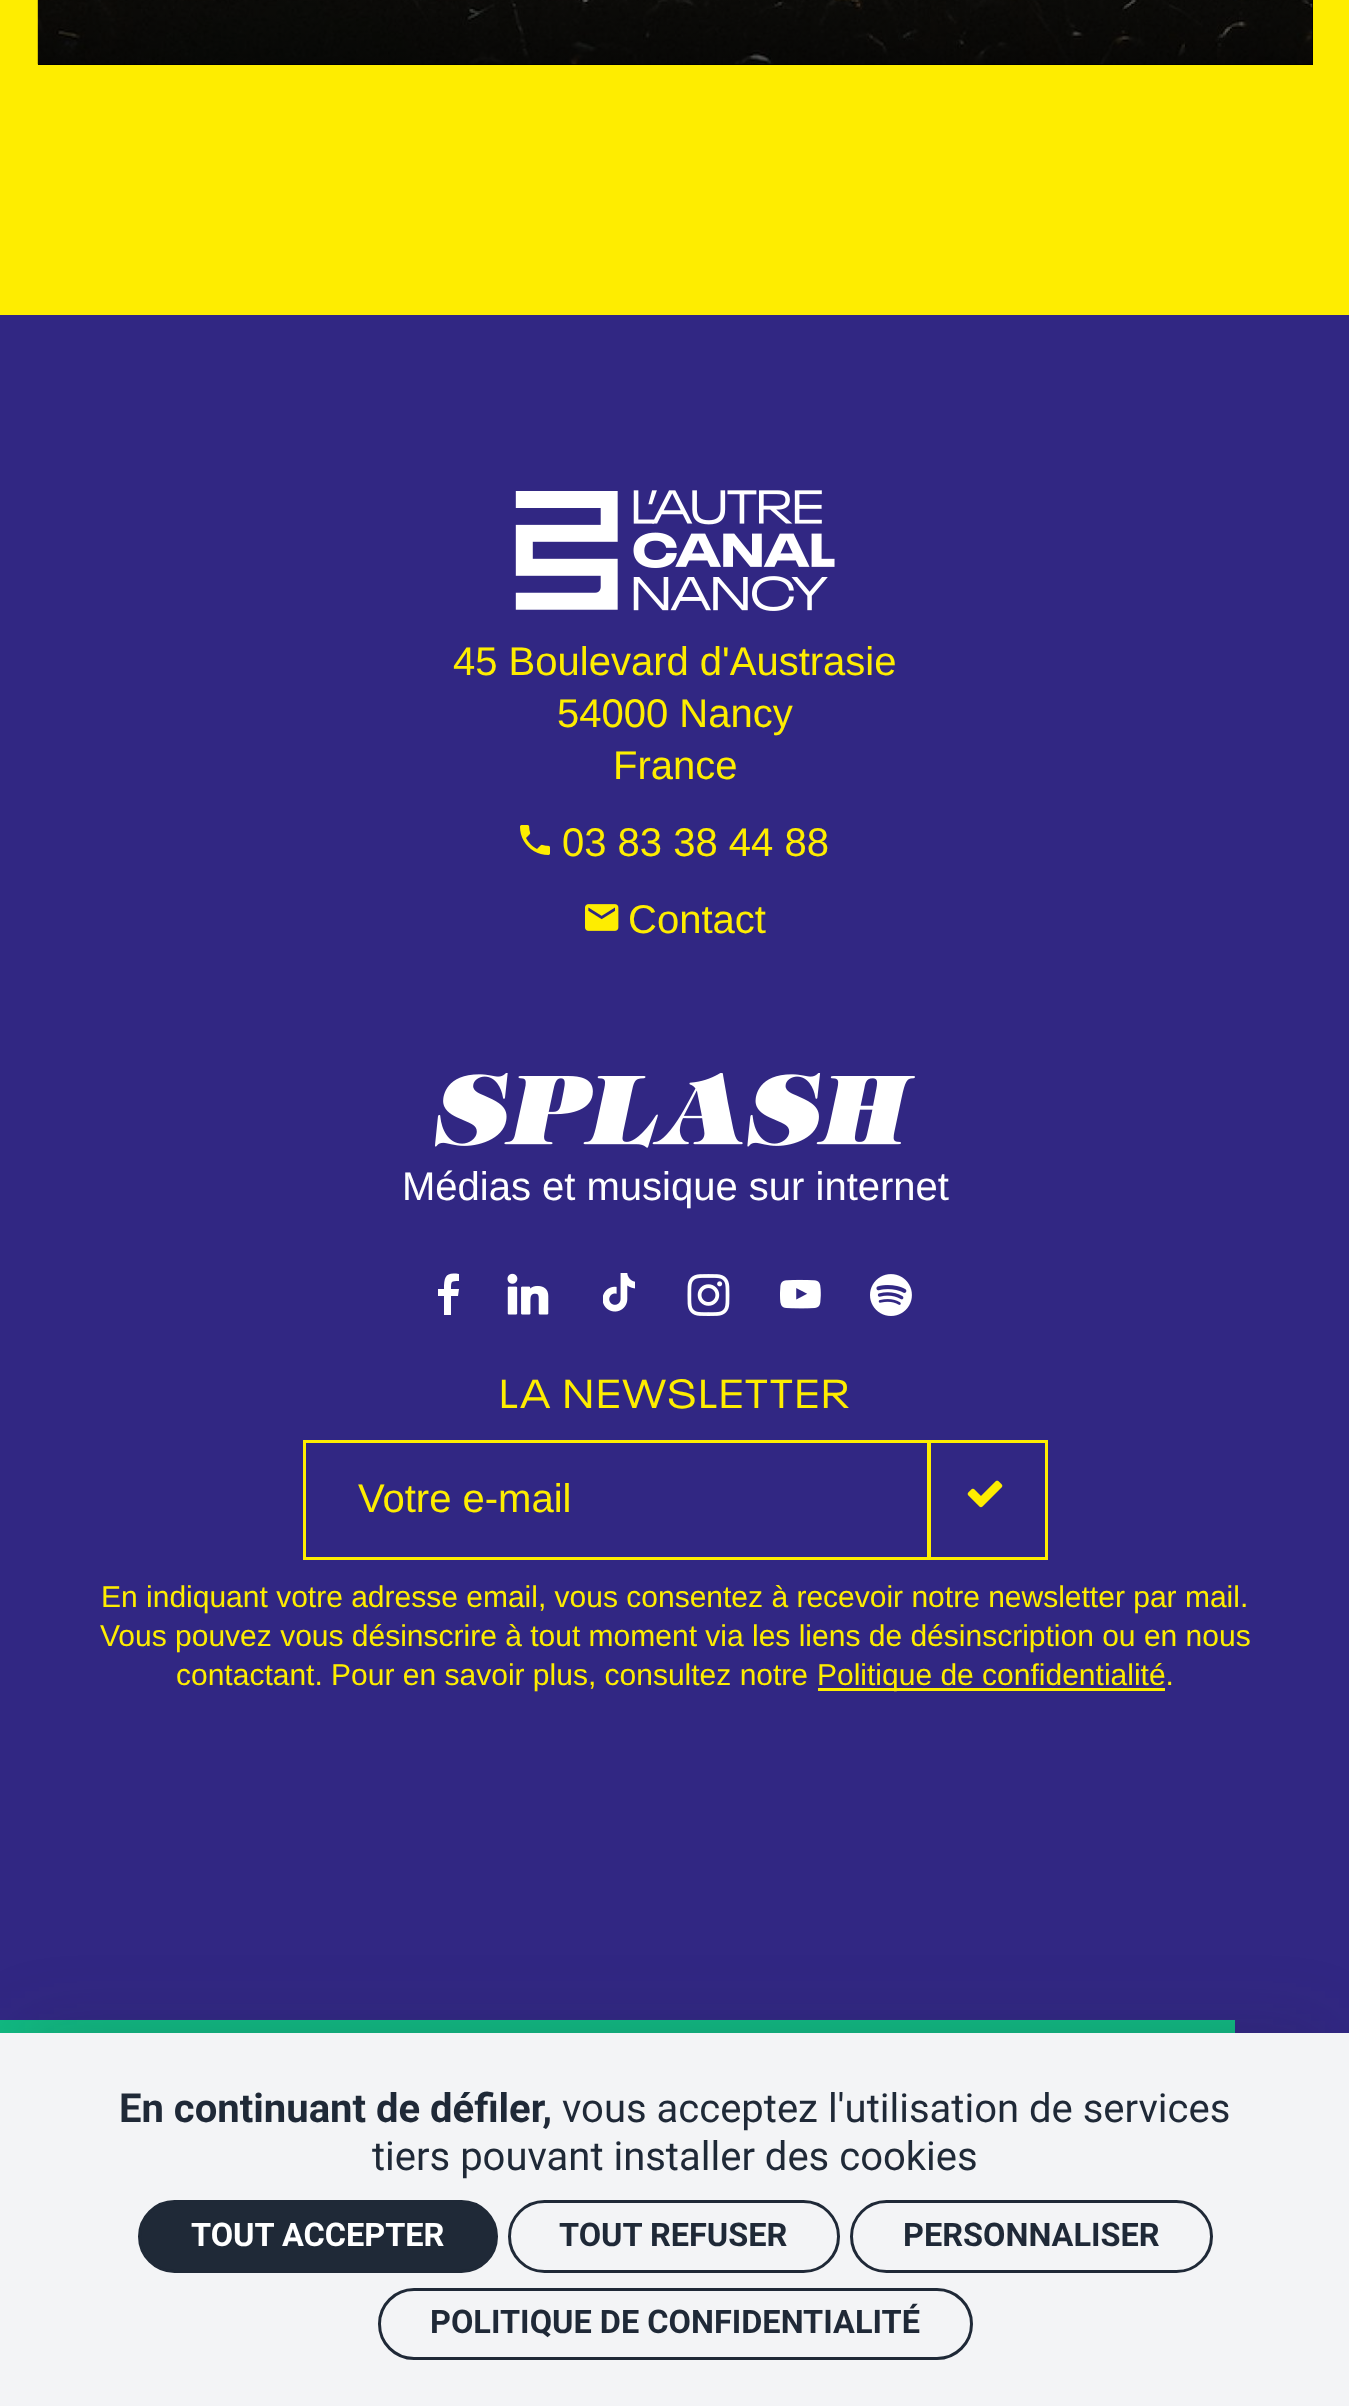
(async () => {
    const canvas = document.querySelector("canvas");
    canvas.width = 1349;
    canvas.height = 2406;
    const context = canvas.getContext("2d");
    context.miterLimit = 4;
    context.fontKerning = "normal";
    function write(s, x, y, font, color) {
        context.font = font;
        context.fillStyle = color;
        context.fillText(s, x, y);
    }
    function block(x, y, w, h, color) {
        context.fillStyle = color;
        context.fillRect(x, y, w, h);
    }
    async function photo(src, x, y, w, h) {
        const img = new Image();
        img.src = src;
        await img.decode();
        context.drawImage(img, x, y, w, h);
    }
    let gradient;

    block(0, 0, 1349, 2406, "rgb(254, 237, 0)");
    block(38, 0, 1275, 65, "rgb(0, 0, 0)");
    await photo("media/1.png", 37, 0, 1276, 65);
    gradient = context.createLinearGradient(675, 65, 675, -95);
    gradient.addColorStop(0, "rgba(0, 0, 0, 0.5)");
    gradient.addColorStop(1, "rgba(0, 0, 0, 0)");
    context.fillStyle = gradient;
    context.fillRect(38, 0, 1275, 65);
    block(0, 315, 1349, 1718, "rgb(49, 39, 131)");
    await photo("media/2.png", 515, 490, 320, 121);
    write("45 Boulevard d'Austrasie", 453, 675, "40px Liberation Sans", "rgb(254, 237, 0)");
    write("54000 Nancy", 557, 727, "40px Liberation Sans", "rgb(254, 237, 0)");
    write("France", 613, 779, "40px Liberation Sans", "rgb(254, 237, 0)");
    await photo("media/3.png", 520, 825, 30, 30);
    write("03 83 38 44 88", 562, 856, "40px Liberation Sans", "rgb(254, 237, 0)");
    await photo("media/4.png", 585, 904, 34, 27);
    write("Contact", 628, 933, "40px Liberation Sans", "rgb(254, 237, 0)");
    await photo("media/5.png", 435, 1073, 480, 75);
    write("Médias et musique sur internet", 402, 1200, "40px Liberation Sans", "rgb(255, 255, 255)");
    context.beginPath();
    context.moveTo(451, 1315);
    context.lineTo(444, 1315);
    context.lineTo(444, 1296);
    context.lineTo(438, 1296);
    context.lineTo(438, 1289);
    context.lineTo(444, 1289);
    context.bezierCurveTo(444, 1276, 446, 1272, 459, 1274);
    context.lineTo(459, 1281);
    context.bezierCurveTo(451, 1281, 451, 1281, 451, 1289);
    context.lineTo(459, 1289);
    context.lineTo(458, 1296);
    context.lineTo(451, 1296);
    context.closePath();
    context.fill();
    await photo("media/6.png", 507, 1273, 42, 42);
    await photo("media/7.png", 603, 1273, 32, 39);
    await photo("media/8.png", 687, 1274, 43, 42);
    await photo("media/9.png", 780, 1279, 41, 30);
    await photo("media/10.png", 870, 1274, 42, 42);
    context.letterSpacing = "2px";
    write("LA NEWSLETTER", 499, 1408, "40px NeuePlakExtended", "rgb(254, 237, 0)");
    context.strokeStyle = "rgb(254, 237, 0)";
    context.lineWidth = 3;
    context.strokeRect(304.5, 1441.5, 624, 117);
    context.letterSpacing = "0px";
    write("Votre e-mail", 358, 1512, "40px Liberation Sans", "rgb(254, 237, 0)");
    context.strokeRect(929.5, 1441.5, 117, 117);
    await photo("media/11.png", 967, 1480, 36, 28);
    write("En indiquant votre adresse email, vous consentez à recevoir notre newsletter par mail.", 101, 1607, "30px Liberation Sans", "rgb(254, 237, 0)");
    write("Vous pouvez vous désinscrire à tout moment via les liens de désinscription ou en nous", 100, 1646, "30px Liberation Sans", "rgb(254, 237, 0)");
    write("contactant. Pour en savoir plus, consultez notre", 176, 1685, "30px Liberation Sans", "rgb(254, 237, 0)");
    block(818, 1688, 347, 3, "rgb(254, 237, 0)");
    write("Politique de confidentialité.", 817, 1685, "30px Liberation Sans", "rgb(254, 237, 0)");
    block(0, 2020, 1235, 13, "rgb(16, 185, 129)");
    context.fillStyle = "rgba(34, 34, 48, 0.2)";
    context.filter = "blur(37.5px)";
    context.beginPath();
    context.rect(25, 2033, 1300, 325);
    context.fill();
    context.filter = "none";
    block(0, 2033, 1349, 373, "rgb(243, 244, 246)");
    write("En continuant de défiler,", 119, 2122, "bold 40px Roboto", "rgb(31, 41, 55)");
    write("vous acceptez l'utilisation de services", 562, 2122, "40px Roboto", "rgb(31, 41, 55)");
    write("tiers pouvant installer des cookies", 372, 2170, "40px Roboto", "rgb(31, 41, 55)");
    context.beginPath();
    context.roundRect(139.5, 2201.5, 357, 70, 35);
    context.fill();
    context.strokeStyle = "rgb(31, 41, 55)";
    context.stroke();
    write("TOUT ACCEPTER", 191, 2246, "bold 32.5px Roboto", "rgb(255, 255, 255)");
    context.beginPath();
    context.roundRect(509.5, 2201.5, 329, 70, 35);
    context.stroke();
    write("TOUT REFUSER", 559, 2246, "bold 32.5px Roboto", "rgb(31, 41, 55)");
    context.beginPath();
    context.roundRect(851.5, 2201.5, 360, 70, 35);
    context.stroke();
    write("PERSONNALISER", 903, 2246, "bold 32.5px Roboto", "rgb(31, 41, 55)");
    context.beginPath();
    context.roundRect(379.5, 2289.5, 592, 69, 34.5);
    context.stroke();
    write("POLITIQUE DE CONFIDENTIALITÉ", 430, 2333, "bold 32.5px Roboto", "rgb(31, 41, 55)");
})();
